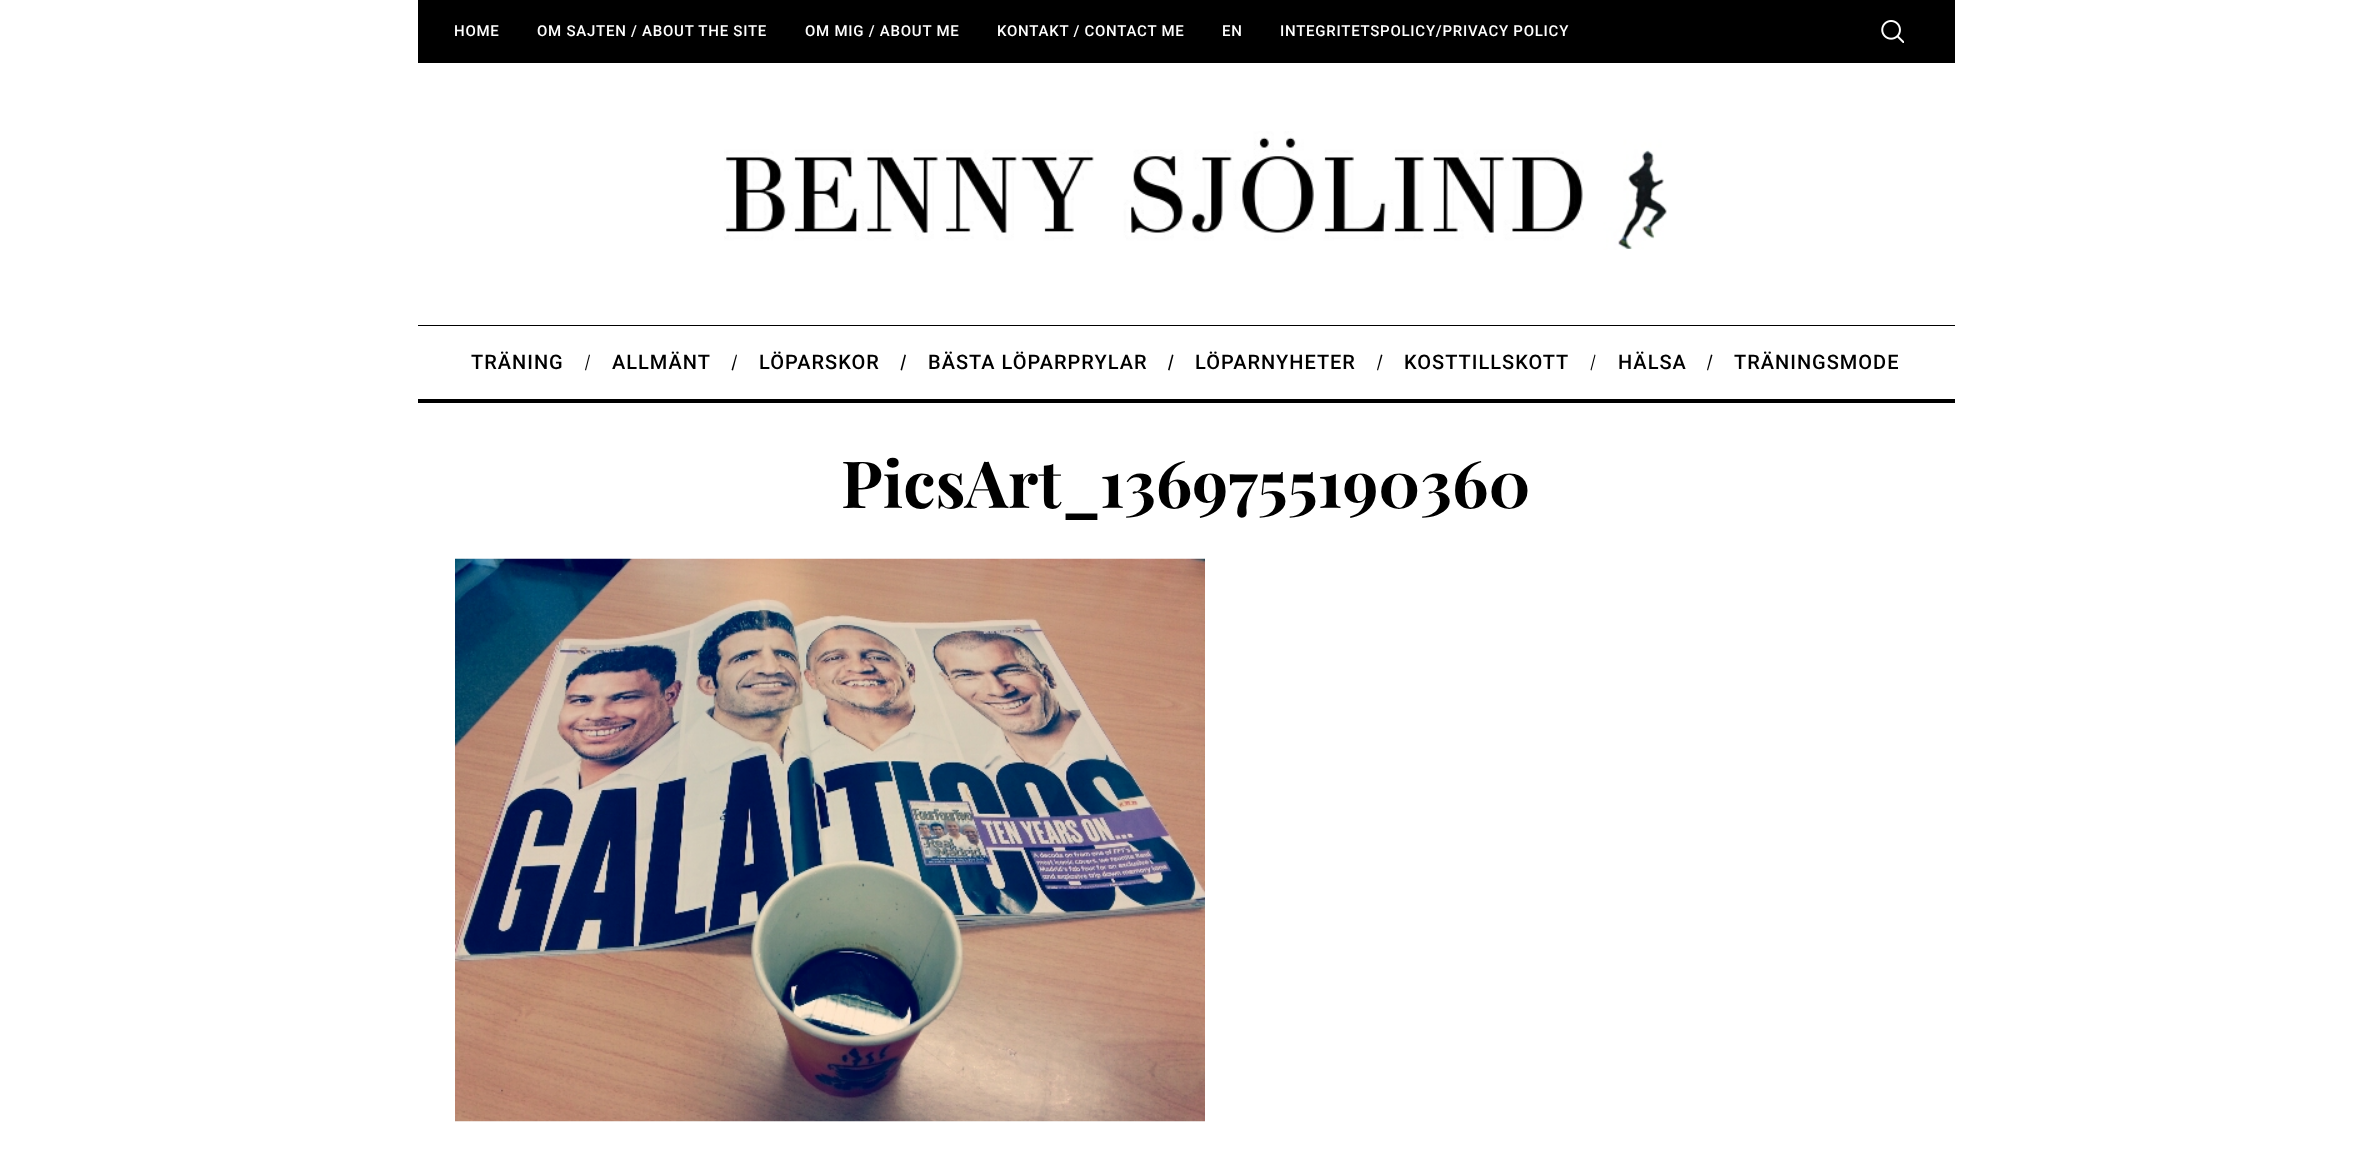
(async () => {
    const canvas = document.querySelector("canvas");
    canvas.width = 2371;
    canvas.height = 1152;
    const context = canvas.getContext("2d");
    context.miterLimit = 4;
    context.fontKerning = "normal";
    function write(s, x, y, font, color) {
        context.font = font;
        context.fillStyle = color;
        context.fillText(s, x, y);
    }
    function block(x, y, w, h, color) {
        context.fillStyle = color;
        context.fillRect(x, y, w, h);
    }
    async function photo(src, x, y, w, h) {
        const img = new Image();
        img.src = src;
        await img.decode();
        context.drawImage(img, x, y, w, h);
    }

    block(0, 0, 2371, 1152, "rgb(255, 255, 255)");
    block(418, 0, 1537, 63, "rgb(0, 0, 0)");
    context.letterSpacing = "0.75px";
    write("HOME", 454, 36, "500 15px Roboto", "rgb(255, 255, 255)");
    write("OM SAJTEN / ABOUT THE SITE", 537, 36, "500 15px Roboto", "rgb(255, 255, 255)");
    write("OM MIG / ABOUT ME", 805, 36, "500 15px Roboto", "rgb(255, 255, 255)");
    write("KONTAKT / CONTACT ME", 997, 36, "500 15px Roboto", "rgb(255, 255, 255)");
    write("EN", 1222, 36, "500 15px Roboto", "rgb(255, 255, 255)");
    write("INTEGRITETSPOLICY/PRIVACY POLICY", 1280, 36, "500 15px Roboto", "rgb(255, 255, 255)");
    await photo("media/1.png", 1881, 20, 23, 23);
    await photo("media/2.png", 724, 131, 943, 119);
    block(418, 325, 1537, 1, "rgb(0, 0, 0)");
    block(418, 399, 1537, 4, "rgb(0, 0, 0)");
    context.letterSpacing = "1px";
    write("TRÄNING", 471, 369, "500 20px Roboto", "rgb(0, 0, 0)");
    context.beginPath();
    context.moveTo(589, 354.5);
    context.lineTo(590, 355);
    context.lineTo(586, 370.5);
    context.lineTo(585, 370);
    context.closePath();
    context.fill();
    write("ALLMÄNT", 612, 369, "500 20px Roboto", "rgb(0, 0, 0)");
    context.beginPath();
    context.moveTo(736, 354.5);
    context.lineTo(737, 355);
    context.lineTo(733, 370.5);
    context.lineTo(731.5, 370);
    context.closePath();
    context.fill();
    write("LÖPARSKOR", 759, 369, "500 20px Roboto", "rgb(0, 0, 0)");
    context.beginPath();
    context.moveTo(904.5, 354.5);
    context.lineTo(906, 355);
    context.lineTo(902, 370.5);
    context.lineTo(900.5, 370);
    context.closePath();
    context.fill();
    write("BÄSTA LÖPARPRYLAR", 928, 369, "500 20px Roboto", "rgb(0, 0, 0)");
    context.beginPath();
    context.moveTo(1172, 354.5);
    context.lineTo(1173.5, 355);
    context.lineTo(1169.5, 370.5);
    context.lineTo(1168, 370);
    context.closePath();
    context.fill();
    write("LÖPARNYHETER", 1195, 369, "500 20px Roboto", "rgb(0, 0, 0)");
    context.beginPath();
    context.moveTo(1381, 354.5);
    context.lineTo(1382.5, 355);
    context.lineTo(1378, 370.5);
    context.lineTo(1377, 370);
    context.closePath();
    context.fill();
    write("KOSTTILLSKOTT", 1404, 369, "500 20px Roboto", "rgb(0, 0, 0)");
    context.beginPath();
    context.moveTo(1594.5, 354.5);
    context.lineTo(1595.5, 355);
    context.lineTo(1591.5, 370.5);
    context.lineTo(1590.5, 370);
    context.closePath();
    context.fill();
    write("HÄLSA", 1618, 369, "500 20px Roboto", "rgb(0, 0, 0)");
    context.beginPath();
    context.moveTo(1711, 354.5);
    context.lineTo(1712.5, 355);
    context.lineTo(1708, 370.5);
    context.lineTo(1707, 370);
    context.closePath();
    context.fill();
    write("TRÄNINGSMODE", 1734, 369, "500 20px Roboto", "rgb(0, 0, 0)");
    context.letterSpacing = "0px";
    write("PicsArt_1369755190360", 841, 508, "bold 65px Playfair Display", "rgb(0, 0, 0)");
    await photo("media/3.png", 455, 558, 750, 564);
})();
